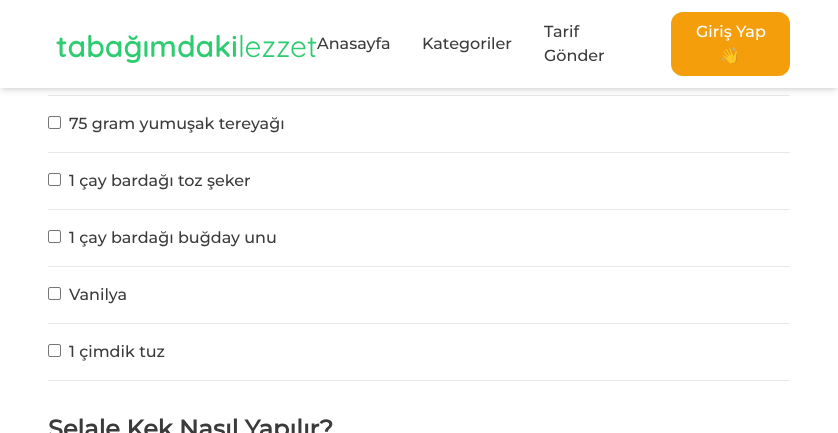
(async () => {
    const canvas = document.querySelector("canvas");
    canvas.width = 838;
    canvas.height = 433;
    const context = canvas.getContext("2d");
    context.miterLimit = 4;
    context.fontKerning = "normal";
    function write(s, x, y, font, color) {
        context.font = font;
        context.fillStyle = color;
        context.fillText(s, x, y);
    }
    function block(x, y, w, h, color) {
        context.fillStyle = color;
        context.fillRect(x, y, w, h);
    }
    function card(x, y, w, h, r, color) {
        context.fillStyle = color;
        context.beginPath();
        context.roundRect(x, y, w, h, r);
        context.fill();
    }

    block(0, 0, 838, 433, "rgb(255, 255, 255)");
    context.fillStyle = "rgba(0, 0, 0, 0.1)";
    context.filter = "blur(2px)";
    context.beginPath();
    context.rect(2, 4, 834, 84);
    context.fill();
    context.filter = "none";
    block(48, 95, 742, 1, "rgb(229, 231, 235)");
    context.fillStyle = "rgba(0, 0, 0, 0.1)";
    context.filter = "blur(3px)";
    context.beginPath();
    context.rect(1, 5, 836, 86);
    context.fill();
    context.filter = "none";
    block(0, 0, 838, 88, "rgb(255, 255, 255)");
    write("tabağımdaki", 56, 57, "600 30px Quicksand", "rgb(46, 204, 113)");
    write("lezzet", 238, 57, "30px Quicksand", "rgb(46, 204, 113)");
    write("Anasayfa", 317, 49, "100 16px Montserrat", "rgb(59, 59, 59)");
    write("Kategoriler", 422, 49, "100 16px Montserrat", "rgb(59, 59, 59)");
    write("Tarif", 544, 37, "100 16px Montserrat", "rgb(59, 59, 59)");
    write("Gönder", 544, 61, "100 16px Montserrat", "rgb(59, 59, 59)");
    card(671, 12, 119, 64, 12, "rgb(245, 158, 11)");
    write("Giriş Yap", 696, 37, "100 16px Montserrat", "rgb(255, 255, 255)");
    write("👋", 720, 61, "16px Noto Color Emoji", "rgb(255, 255, 255)");
    block(48, 152, 742, 1, "rgb(229, 231, 235)");
    context.beginPath();
    context.roundRect(48.5, 116.5, 12, 12, 1.5);
    context.strokeStyle = "rgb(118, 118, 118)";
    context.stroke();
    write("75 gram yumuşak tereyağı", 69, 129, "100 16px Montserrat", "rgb(59, 59, 59)");
    block(48, 209, 742, 1, "rgb(229, 231, 235)");
    context.beginPath();
    context.roundRect(48.5, 173.5, 12, 12, 1.5);
    context.stroke();
    write("1 çay bardağı toz şeker", 69, 186, "100 16px Montserrat", "rgb(59, 59, 59)");
    block(48, 266, 742, 1, "rgb(229, 231, 235)");
    context.beginPath();
    context.roundRect(48.5, 230.5, 12, 12, 1.5);
    context.stroke();
    write("1 çay bardağı buğday unu", 69, 243, "100 16px Montserrat", "rgb(59, 59, 59)");
    block(48, 323, 742, 1, "rgb(229, 231, 235)");
    context.beginPath();
    context.roundRect(48.5, 287.5, 12, 12, 1.5);
    context.stroke();
    write("Vanilya", 69, 300, "100 16px Montserrat", "rgb(59, 59, 59)");
    block(48, 380, 742, 1, "rgb(229, 231, 235)");
    context.beginPath();
    context.roundRect(48.5, 344.5, 12, 12, 1.5);
    context.stroke();
    write("1 çimdik tuz", 69, 357, "100 16px Montserrat", "rgb(59, 59, 59)");
    write("Şelale Kek Nasıl Yapılır?", 48, 437, "bold 24px Montserrat", "rgb(59, 59, 59)");
})();
